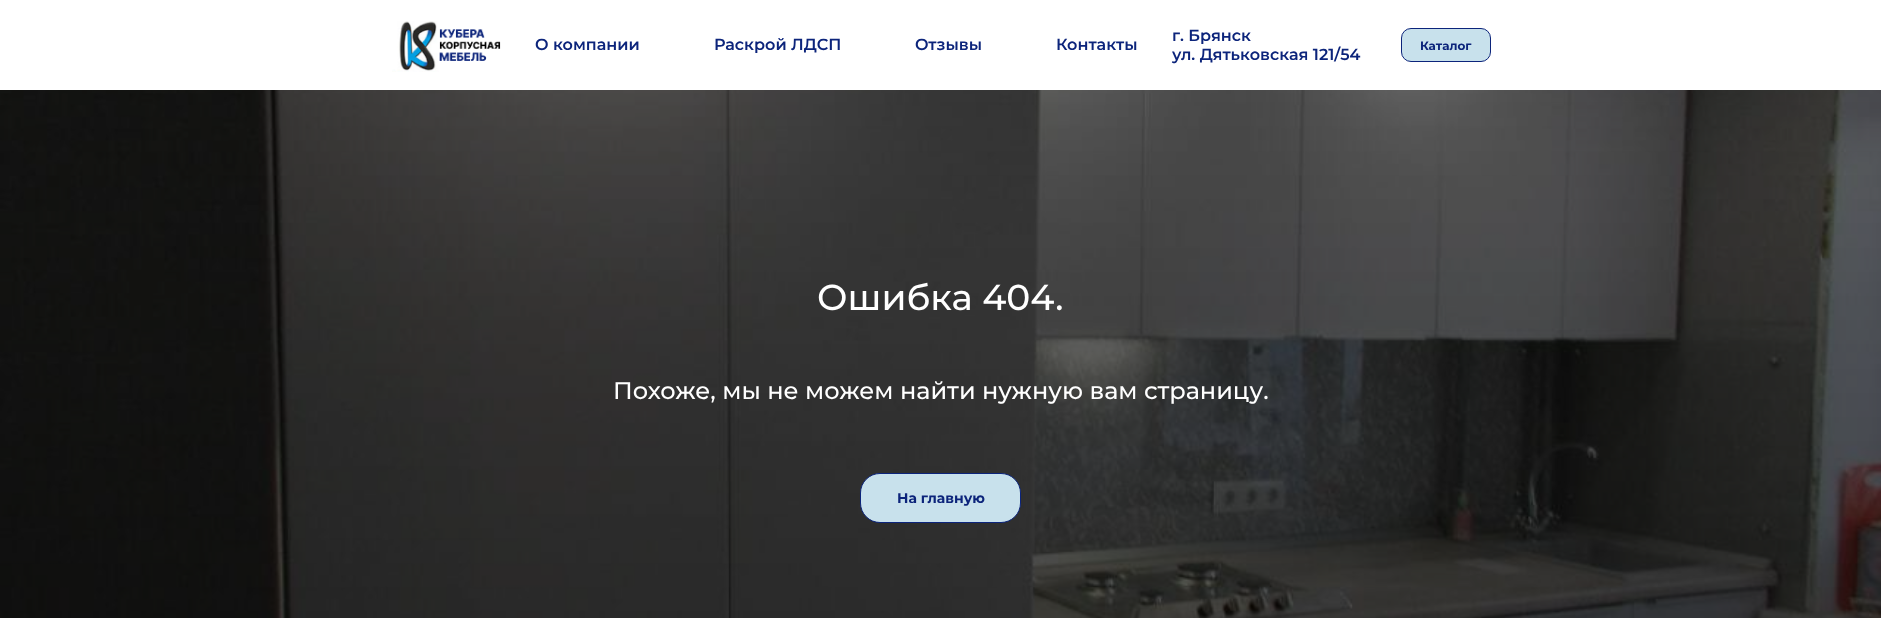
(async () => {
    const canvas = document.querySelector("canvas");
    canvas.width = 1881;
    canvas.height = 618;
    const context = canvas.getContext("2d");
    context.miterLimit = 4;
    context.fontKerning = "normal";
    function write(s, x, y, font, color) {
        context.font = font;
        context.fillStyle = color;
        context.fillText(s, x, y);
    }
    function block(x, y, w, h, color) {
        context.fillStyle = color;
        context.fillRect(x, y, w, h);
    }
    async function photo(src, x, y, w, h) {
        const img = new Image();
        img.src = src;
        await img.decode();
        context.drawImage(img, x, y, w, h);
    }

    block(0, 0, 1881, 618, "rgb(255, 255, 255)");
    await photo("media/1.png", 392, 21, 109, 51);
    write("О компании", 535, 50, "600 16px Montserrat", "rgb(12, 36, 123)");
    write("Раскрой ЛДСП", 714, 50, "600 16px Montserrat", "rgb(12, 36, 123)");
    write("Отзывы", 915, 50, "600 16px Montserrat", "rgb(12, 36, 123)");
    write("Контакты", 1056, 50, "600 16px Montserrat", "rgb(12, 36, 123)");
    write("г. Брянск", 1172, 41, "600 16px Montserrat", "rgb(12, 36, 123)");
    write("ул. Дятьковская 121/54", 1172, 60, "600 16px Montserrat", "rgb(12, 36, 123)");
    context.fillStyle = "rgb(200, 225, 236)";
    context.beginPath();
    context.roundRect(1401.5, 28.5, 89, 33, 9.5);
    context.fill();
    context.strokeStyle = "rgb(12, 36, 123)";
    context.stroke();
    write("Каталог", 1420, 50, "bold 12px Montserrat", "rgb(12, 36, 123)");
    await photo("media/2.png", 0, 90, 1881, 528);
    write("Ошибка 404.", 817, 310, "500 36px Montserrat", "rgb(255, 255, 255)");
    write("Похоже, мы не можем найти нужную вам страницу.", 613, 399, "500 24px Montserrat", "rgb(255, 255, 255)");
    context.fillStyle = "rgb(200, 225, 236)";
    context.beginPath();
    context.roundRect(860.5, 473.5, 160, 49, 19.5);
    context.fill();
    context.stroke();
    write("На главную", 897, 503, "bold 14px Montserrat", "rgb(12, 36, 123)");
})();
